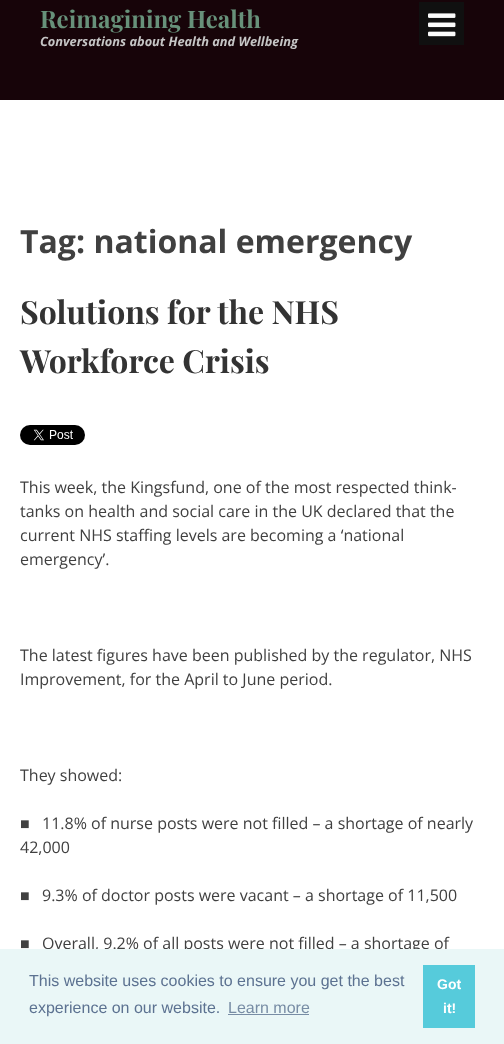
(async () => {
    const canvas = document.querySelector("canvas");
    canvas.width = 504;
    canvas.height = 1044;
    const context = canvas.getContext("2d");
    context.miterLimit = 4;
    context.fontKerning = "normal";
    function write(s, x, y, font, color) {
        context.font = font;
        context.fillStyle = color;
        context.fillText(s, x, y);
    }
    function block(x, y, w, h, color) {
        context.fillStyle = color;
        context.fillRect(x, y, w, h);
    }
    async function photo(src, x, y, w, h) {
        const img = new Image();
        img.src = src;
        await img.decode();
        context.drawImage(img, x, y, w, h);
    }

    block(0, 0, 504, 1044, "rgb(255, 255, 255)");
    block(0, 0, 504, 100, "rgb(23, 4, 9)");
    write("Reimagining Health", 40, 28, "bold 24px Playfair Display", "rgb(103, 145, 122)");
    write("Conversations about Health and Wellbeing", 40, 46, "italic bold 12.8px Open Sans", "rgb(198, 198, 198)");
    block(419, 2, 45, 43, "rgb(16, 16, 16)");
    await photo("media/1.png", 428, 13, 28, 24);
    write("Tag: national emergency", 20, 253, "bold 32px Open Sans", "rgb(64, 64, 64)");
    write("Solutions for the NHS", 20, 324, "bold 32px Playfair Display", "rgb(51, 51, 51)");
    write("Workforce Crisis", 20, 373, "bold 32px Playfair Display", "rgb(51, 51, 51)");
    await photo("media/2.png", 20, 425, 65, 20);
    write("This week, the Kingsfund, one of the most respected think-", 20, 493, "16px Open Sans", "rgb(64, 64, 64)");
    write("tanks on health and social care in the UK declared that the", 20, 517, "16px Open Sans", "rgb(64, 64, 64)");
    write("current NHS staffing levels are becoming a ‘national", 20, 541, "16px Open Sans", "rgb(64, 64, 64)");
    write("emergency’.", 20, 565, "16px Open Sans", "rgb(64, 64, 64)");
    write("The latest figures have been published by the regulator, NHS", 20, 661, "16px Open Sans", "rgb(64, 64, 64)");
    write("Improvement, for the April to June period.", 20, 685, "16px Open Sans", "rgb(64, 64, 64)");
    write("They showed:", 20, 781, "16px Open Sans", "rgb(64, 64, 64)");
    write("■", 20, 829, "16px Liberation Sans", "rgb(64, 64, 64)");
    write("11.8% of nurse posts were not filled – a shortage of nearly", 42, 829, "16px Open Sans", "rgb(64, 64, 64)");
    write("42,000", 20, 853, "16px Open Sans", "rgb(64, 64, 64)");
    write("■", 20, 901, "16px Liberation Sans", "rgb(64, 64, 64)");
    write("9.3% of doctor posts were vacant – a shortage of 11,500", 42, 901, "16px Open Sans", "rgb(64, 64, 64)");
    write("■", 20, 949, "16px Liberation Sans", "rgb(64, 64, 64)");
    write("Overall, 9.2% of all posts were not filled – a shortage of", 42, 949, "16px Open Sans", "rgb(64, 64, 64)");
    block(0, 949, 504, 95, "rgb(234, 247, 247)");
    write("This website uses cookies to ensure you get the best", 29, 986, "16px Liberation Sans", "rgb(92, 114, 145)");
    write("experience on our website.", 29, 1013, "16px Liberation Sans", "rgb(92, 114, 145)");
    write("Learn more", 228, 1013, "16px Liberation Sans", "rgb(120, 141, 165)");
    block(228, 1014, 81, 1, "rgb(120, 141, 165)");
    block(423, 965, 52, 63, "rgb(86, 203, 219)");
    write("Got", 437, 989, "bold 14px Liberation Sans", "rgb(255, 255, 255)");
    write("it!", 443, 1013, "bold 14px Liberation Sans", "rgb(255, 255, 255)");
})();
